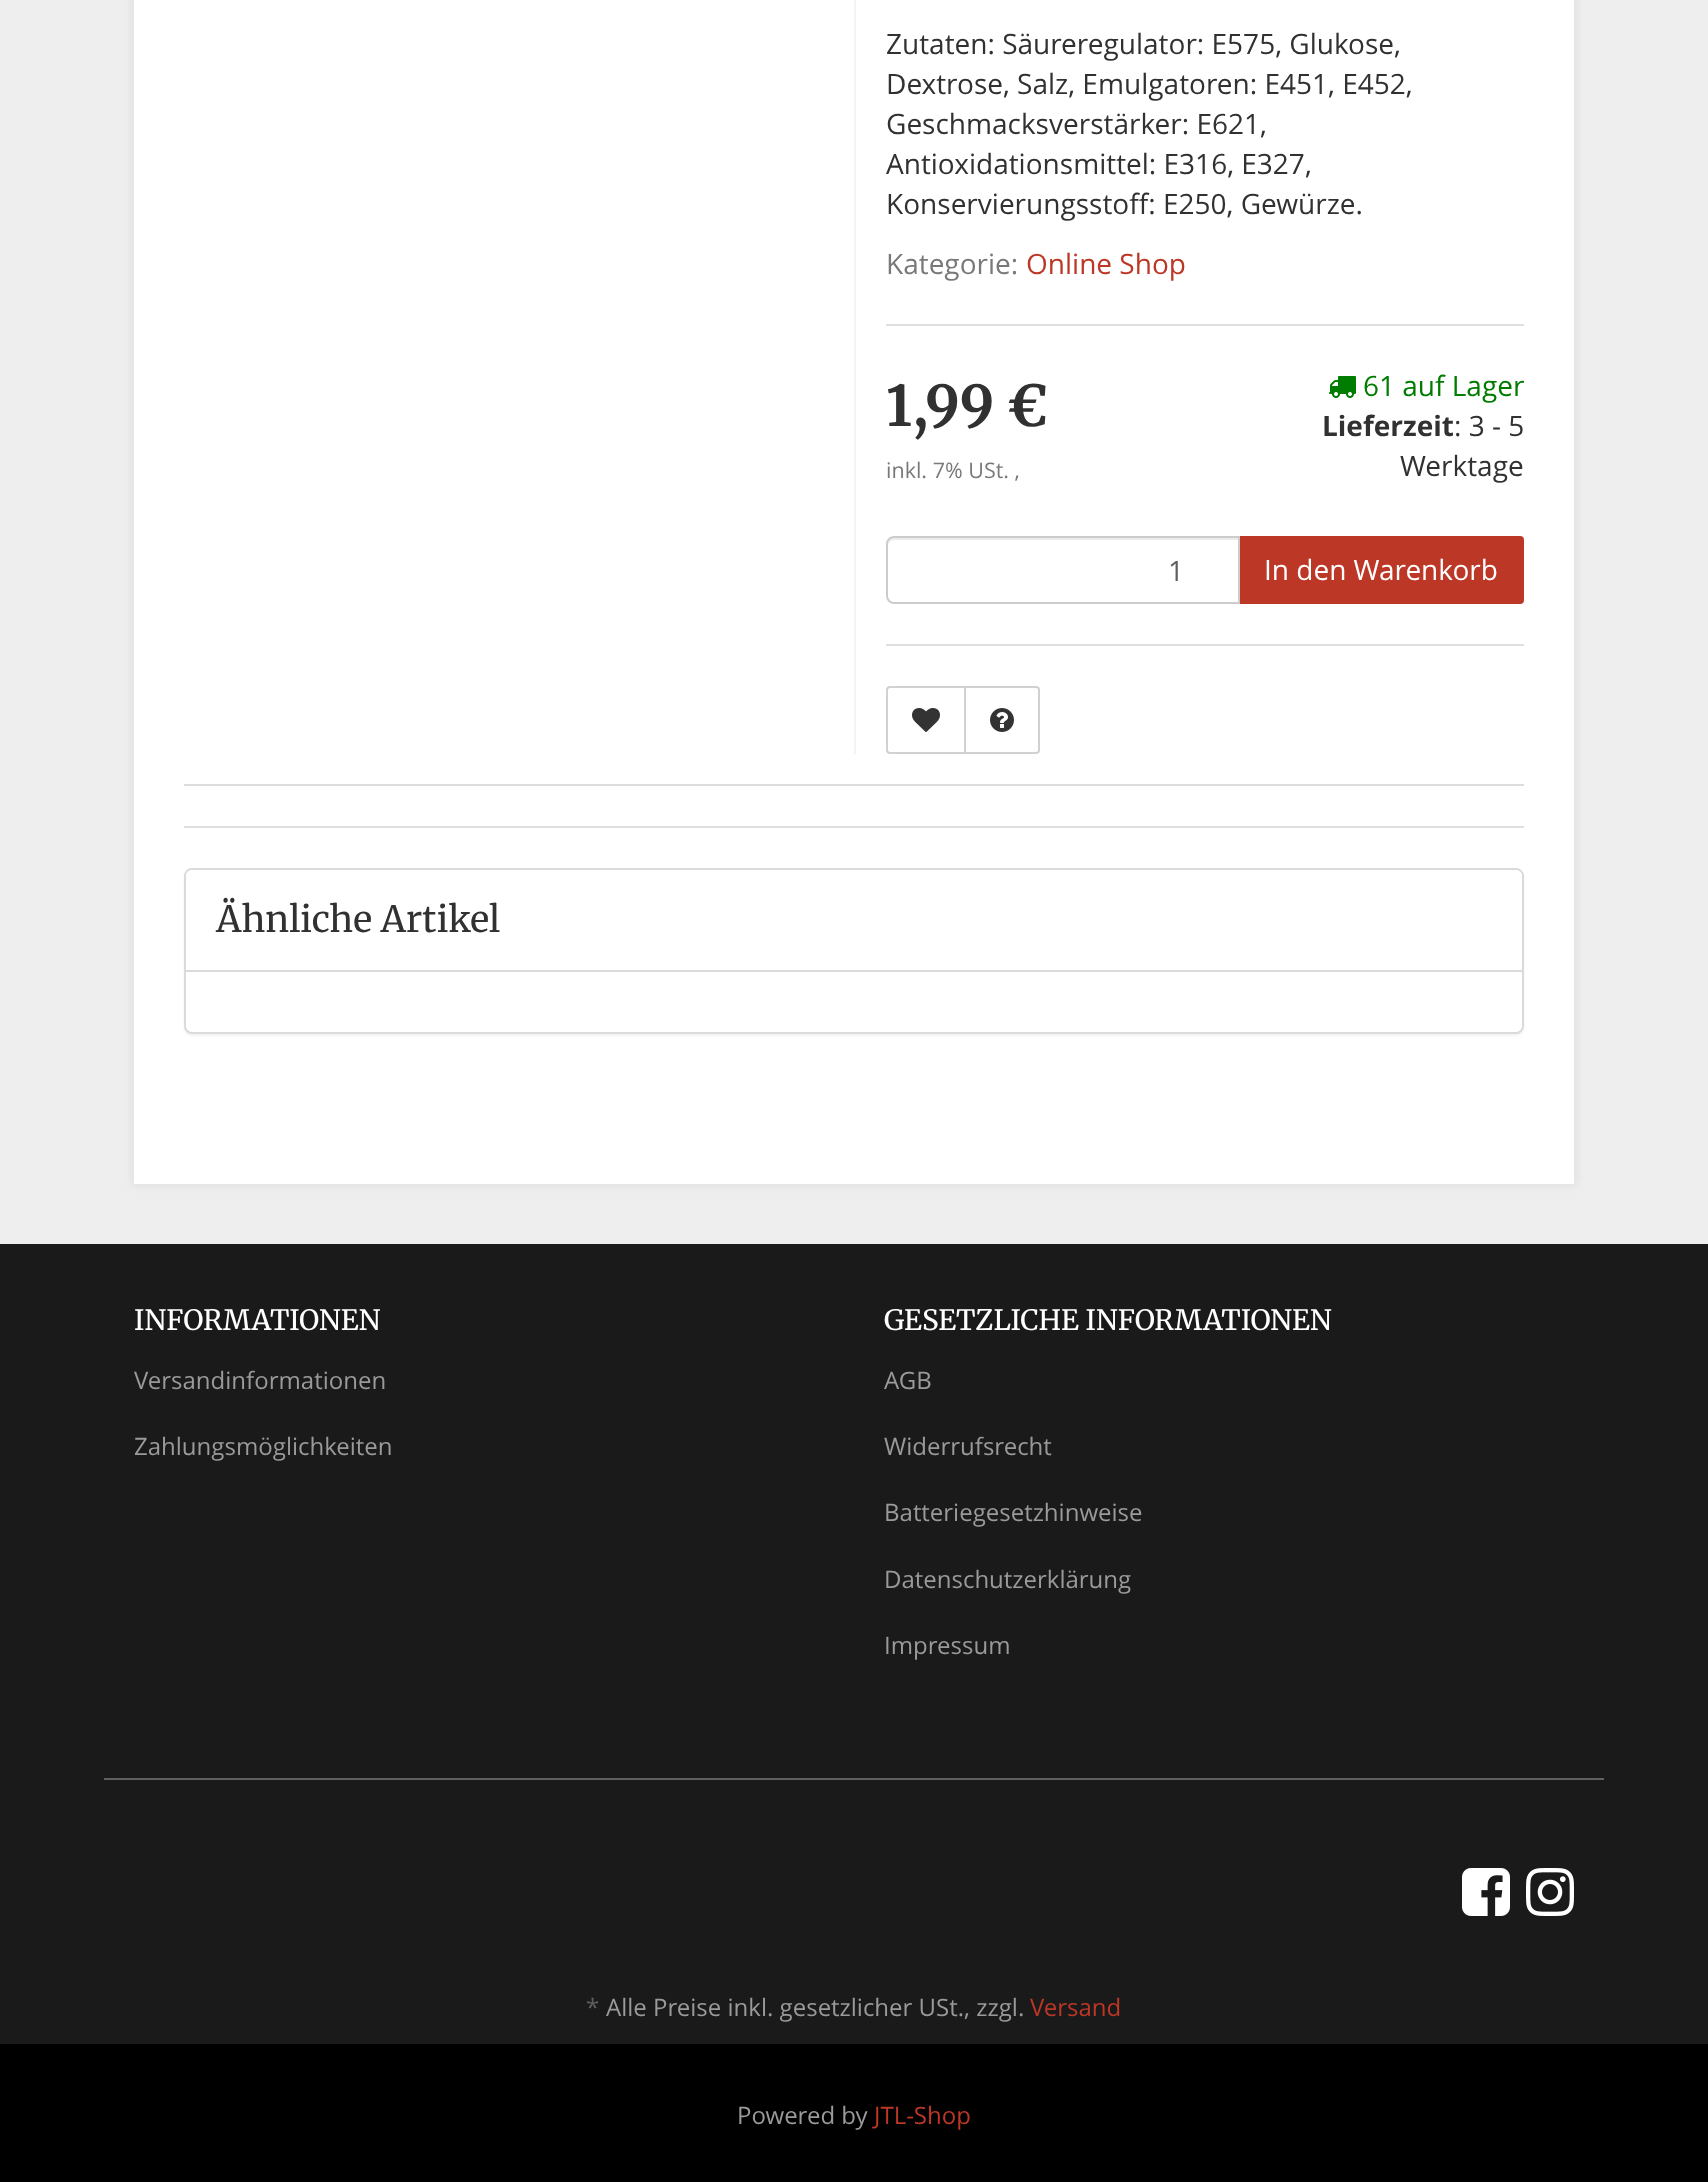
(async () => {
    const canvas = document.querySelector("canvas");
    canvas.width = 1708;
    canvas.height = 2182;
    const context = canvas.getContext("2d");
    context.miterLimit = 4;
    context.fontKerning = "normal";
    function write(s, x, y, font, color) {
        context.font = font;
        context.fillStyle = color;
        context.fillText(s, x, y);
    }
    function block(x, y, w, h, color) {
        context.fillStyle = color;
        context.fillRect(x, y, w, h);
    }
    async function photo(src, x, y, w, h) {
        const img = new Image();
        img.src = src;
        await img.decode();
        context.drawImage(img, x, y, w, h);
    }

    block(0, 0, 1708, 2182, "rgb(238, 238, 238)");
    context.fillStyle = "rgba(106, 106, 106, 0.1)";
    context.filter = "blur(5px)";
    context.beginPath();
    context.rect(132, -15, 1444, 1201);
    context.fill();
    context.filter = "none";
    block(134, 0, 1440, 1184, "rgb(255, 255, 255)");
    block(854, 0, 2, 754, "rgb(243, 243, 243)");
    write("Zutaten: Säureregulator: E575, Glukose,", 886, 54, "28px Open Sans", "rgb(49, 49, 49)");
    write("Dextrose, Salz, Emulgatoren: E451, E452,", 886, 94, "28px Open Sans", "rgb(49, 49, 49)");
    write("Geschmacksverstärker: E621,", 886, 134, "28px Open Sans", "rgb(49, 49, 49)");
    write("Antioxidationsmittel: E316, E327,", 886, 174, "28px Open Sans", "rgb(49, 49, 49)");
    write("Konservierungsstoff: E250, Gewürze.", 886, 214, "28px Open Sans", "rgb(49, 49, 49)");
    write("Kategorie:", 886, 274, "28px Open Sans", "rgb(121, 121, 121)");
    write("Online Shop", 1026, 274, "28px Open Sans", "rgb(188, 55, 38)");
    block(886, 324, 638, 2, "rgb(223, 223, 223)");
    context.wordSpacing = "-1px";
    write("1,99 €", 886, 426, "bold 56px Merriweather", "rgb(49, 49, 49)");
    context.wordSpacing = "0px";
    write("inkl. 7% USt. ,", 886, 478, "21.5px Open Sans", "rgb(121, 121, 121)");
    await photo("media/1.png", 1329, 376, 27, 22);
    write("61 auf Lager", 1363, 396, "28px Open Sans", "rgb(0, 124, 0)");
    write("Lieferzeit", 1322, 436, "bold 28px Open Sans", "rgb(49, 49, 49)");
    write(": 3 - 5", 1454, 436, "28px Open Sans", "rgb(49, 49, 49)");
    write("Werktage", 1400, 476, "28px Open Sans", "rgb(49, 49, 49)");
    context.fillStyle = "rgb(188, 55, 38)";
    context.beginPath();
    context.roundRect(1239, 537, 284, 66, [0, 3, 3, 0]);
    context.fill();
    context.strokeStyle = "rgb(188, 55, 38)";
    context.lineWidth = 2;
    context.stroke();
    context.fillStyle = "rgb(255, 255, 255)";
    context.beginPath();
    context.roundRect(886, 536, 354, 68, [8, 0, 0, 8]);
    context.fill();
    context.fillStyle = "rgb(236, 236, 236)";
    context.beginPath();
    context.moveTo(894, 540);
    context.lineTo(1238, 540);
    context.lineTo(1238, 538);
    context.lineTo(894, 538);
    context.bezierCurveTo(891, 538, 888, 541, 888, 544);
    context.lineTo(888, 546);
    context.bezierCurveTo(888, 543, 891, 540, 894, 540);
    context.closePath();
    context.fill();
    context.beginPath();
    context.roundRect(887, 537, 352, 66, [7, 0, 0, 7]);
    context.strokeStyle = "rgb(204, 204, 204)";
    context.stroke();
    write("1", 1168, 581, "28px Open Sans", "rgb(96, 96, 96)");
    write("In den Warenkorb", 1264, 580, "28px Open Sans", "rgb(255, 255, 255)");
    block(886, 644, 638, 2, "rgb(223, 223, 223)");
    context.beginPath();
    context.roundRect(887, 687, 78, 66, [3, 0, 0, 3]);
    context.strokeStyle = "rgb(209, 209, 209)";
    context.stroke();
    await photo("media/2.png", 912, 708, 28, 24);
    context.fillStyle = "rgb(255, 255, 255)";
    context.beginPath();
    context.roundRect(965, 687, 74, 66, [0, 3, 3, 0]);
    context.fill();
    context.stroke();
    await photo("media/3.png", 990, 708, 24, 24);
    block(184, 784, 1340, 2, "rgb(221, 221, 221)");
    block(184, 826, 1340, 2, "rgb(223, 223, 223)");
    context.fillStyle = "rgba(0, 0, 0, 0.05)";
    context.filter = "blur(1px)";
    context.beginPath();
    context.roundRect(184, 870, 1340, 166, 8);
    context.fill();
    context.filter = "none";
    context.fillStyle = "rgb(255, 255, 255)";
    context.beginPath();
    context.roundRect(185, 869, 1338, 164, 7);
    context.fill();
    context.strokeStyle = "rgb(218, 218, 218)";
    context.stroke();
    context.beginPath();
    context.roundRect(186, 870, 1336, 102, [6, 6, 0, 0]);
    context.fill();
    block(186, 970, 1336, 2, "rgb(218, 218, 218)");
    write("Ähnliche Artikel", 216, 932, "36px Merriweather", "rgb(49, 49, 49)");
    block(0, 1244, 1708, 800, "rgb(26, 26, 26)");
    write("INFORMATIONEN", 134, 1330, "28px Merriweather", "rgb(255, 255, 255)");
    write("Versandinformationen", 134, 1389, "24px Open Sans", "rgb(154, 154, 154)");
    write("Zahlungsmöglichkeiten", 134, 1455, "24px Open Sans", "rgb(154, 154, 154)");
    write("GESETZLICHE INFORMATIONEN", 884, 1330, "28px Merriweather", "rgb(255, 255, 255)");
    write("AGB", 884, 1389, "24px Open Sans", "rgb(154, 154, 154)");
    write("Widerrufsrecht", 884, 1455, "24px Open Sans", "rgb(154, 154, 154)");
    write("Batteriegesetzhinweise", 884, 1521, "24px Open Sans", "rgb(154, 154, 154)");
    write("Datenschutzerklärung", 884, 1588, "24px Open Sans", "rgb(154, 154, 154)");
    write("Impressum", 884, 1654, "24px Open Sans", "rgb(154, 154, 154)");
    block(104, 1778, 1500, 2, "rgb(96, 96, 96)");
    await photo("media/4.png", 1462, 1868, 48, 48);
    await photo("media/5.png", 1526, 1868, 48, 48);
    write("*", 586, 2016, "24px Open Sans", "rgb(96, 96, 96)");
    write("Alle Preise inkl. gesetzlicher USt., zzgl.", 606, 2016, "24px Open Sans", "rgb(154, 154, 154)");
    write("Versand", 1030, 2016, "24px Open Sans", "rgb(188, 55, 38)");
    block(0, 2044, 1708, 138, "rgb(0, 0, 0)");
    write("Powered by", 737, 2124, "24px Open Sans", "rgb(154, 154, 154)");
    write("JTL-Shop", 874, 2124, "24px Open Sans", "rgb(188, 55, 38)");
})();
